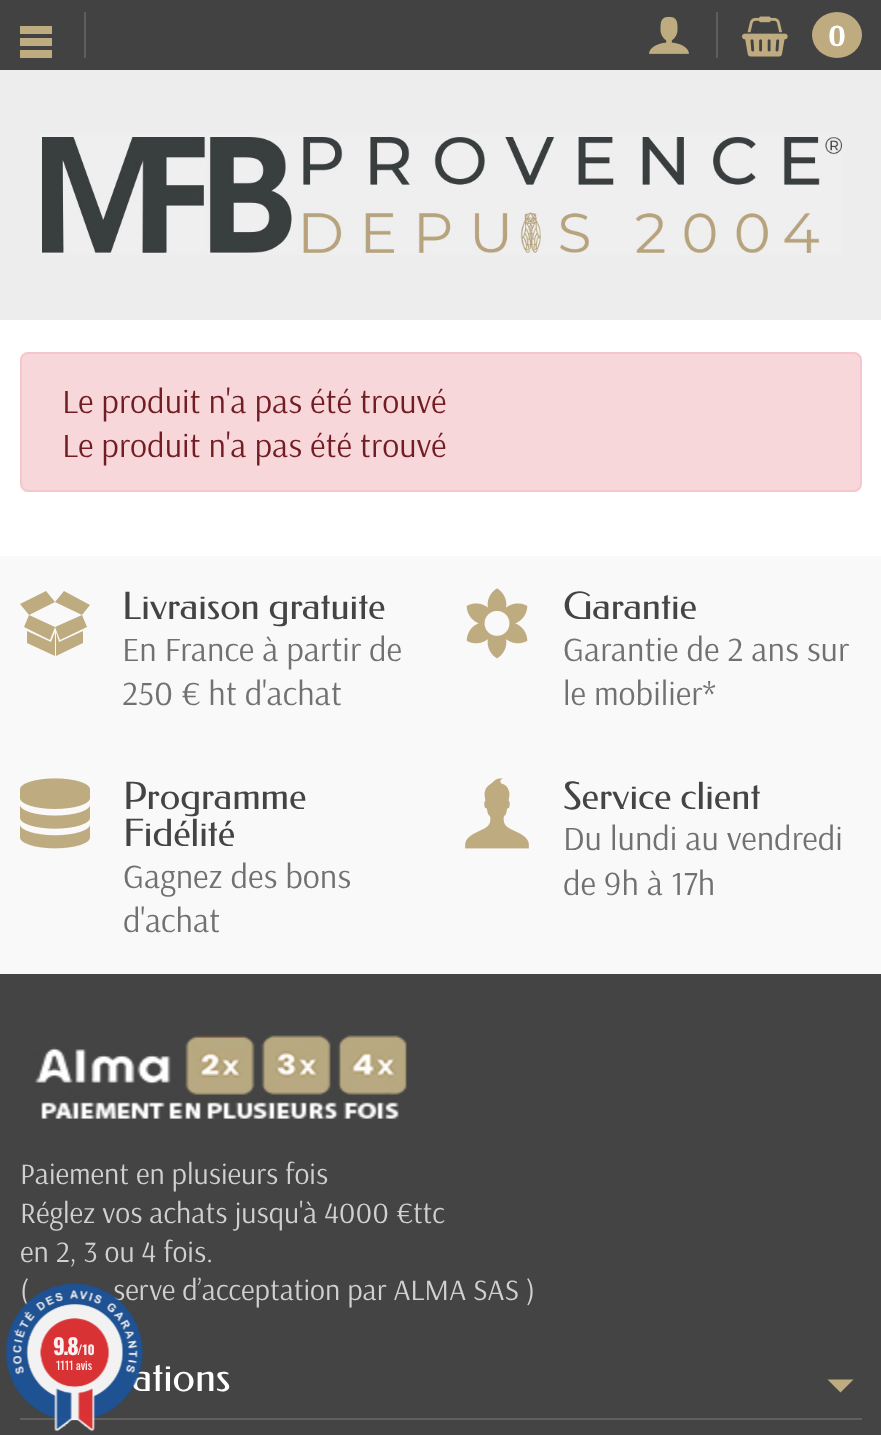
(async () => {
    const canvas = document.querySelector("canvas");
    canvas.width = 881;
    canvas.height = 1435;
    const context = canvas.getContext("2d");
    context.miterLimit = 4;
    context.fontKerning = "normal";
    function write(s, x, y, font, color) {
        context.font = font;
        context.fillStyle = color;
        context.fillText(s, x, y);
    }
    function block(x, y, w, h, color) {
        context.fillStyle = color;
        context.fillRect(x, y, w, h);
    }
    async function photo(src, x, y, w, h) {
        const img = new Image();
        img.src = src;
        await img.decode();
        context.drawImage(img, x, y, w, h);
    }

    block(0, 0, 881, 1435, "rgb(255, 255, 255)");
    block(0, 70, 881, 250, "rgb(237, 237, 237)");
    block(0, 0, 881, 70, "rgb(66, 66, 66)");
    block(84, 12, 2, 46, "rgb(94, 94, 94)");
    await photo("media/1.png", 20, 26, 32, 32);
    await photo("media/2.png", 649, 16, 40, 38);
    block(716, 12, 2, 46, "rgb(94, 94, 94)");
    await photo("media/3.png", 742, 16, 46, 41);
    context.fillStyle = "rgb(191, 171, 128)";
    context.beginPath();
    context.ellipse(837, 35, 25, 23, 0, 0, Math.PI * 2);
    context.fill();
    write("0", 828, 46, "bold 31px Arsenal", "rgb(255, 255, 255)");
    await photo("media/4.png", 42, 133, 800, 122);
    context.fillStyle = "rgb(248, 215, 218)";
    context.beginPath();
    context.roundRect(21, 353, 840, 138, 7);
    context.fill();
    context.strokeStyle = "rgb(245, 198, 203)";
    context.lineWidth = 2;
    context.stroke();
    write("Le produit n'a pas été trouvé", 62, 413, "34px Arsenal", "rgb(114, 28, 36)");
    write("Le produit n'a pas été trouvé", 62, 457, "34px Arsenal", "rgb(114, 28, 36)");
    block(0, 556, 881, 418, "rgb(249, 249, 249)");
    context.fillStyle = "rgb(191, 171, 128)";
    context.beginPath();
    context.moveTo(24, 627);
    context.lineTo(50, 640);
    context.lineTo(55, 627);
    context.lineTo(29, 615);
    context.closePath();
    context.moveTo(55, 627);
    context.lineTo(60, 640);
    context.lineTo(87, 627);
    context.lineTo(82, 615);
    context.closePath();
    context.moveTo(20, 604);
    context.lineTo(29, 615);
    context.lineTo(55, 602);
    context.lineTo(46, 591);
    context.closePath();
    context.moveTo(90, 605);
    context.lineTo(64, 591);
    context.lineTo(55, 602);
    context.lineTo(82, 615);
    context.closePath();
    context.moveTo(27, 631);
    context.lineTo(27, 643);
    context.lineTo(55, 656);
    context.lineTo(55, 632);
    context.lineTo(51, 642);
    context.closePath();
    context.moveTo(56, 632);
    context.lineTo(56, 656);
    context.lineTo(83, 643);
    context.lineTo(83, 631);
    context.lineTo(59, 642);
    context.closePath();
    context.fill();
    write("Livraison gratuite", 122, 619, "37.5px Federo", "rgb(68, 68, 68)");
    write("En France à partir de", 122, 661, "34px Arsenal", "rgb(113, 113, 113)");
    write("250 € ht d'achat", 122, 705, "34px Arsenal", "rgb(113, 113, 113)");
    await photo("media/5.png", 466, 588, 62, 71);
    write("Garantie", 563, 619, "37.5px Federo", "rgb(68, 68, 68)");
    write("Garantie de 2 ans sur", 563, 661, "34px Arsenal", "rgb(113, 113, 113)");
    write("le mobilier*", 563, 705, "34px Arsenal", "rgb(113, 113, 113)");
    await photo("media/6.png", 20, 778, 70, 71);
    write("Programme", 123, 809, "37.5px Federo", "rgb(68, 68, 68)");
    write("Fidélité", 123, 846, "37.5px Federo", "rgb(68, 68, 68)");
    write("Gagnez des bons", 123, 888, "34px Arsenal", "rgb(113, 113, 113)");
    write("d'achat", 123, 932, "34px Arsenal", "rgb(113, 113, 113)");
    await photo("media/7.png", 465, 778, 64, 71);
    write("Service client", 563, 809, "37.5px Federo", "rgb(68, 68, 68)");
    write("Du lundi au vendredi", 563, 850, "34px Arsenal", "rgb(113, 113, 113)");
    write("de 9h à 17h", 563, 895, "34px Arsenal", "rgb(113, 113, 113)");
    block(0, 974, 881, 461, "rgb(68, 68, 68)");
    await photo("media/8.png", 35, 1035, 372, 84);
    write("Paiement en plusieurs fois", 20, 1184, "29.75px Arsenal", "rgb(208, 208, 208)");
    write("Réglez vos achats jusqu'à 4000 €ttc", 20, 1223, "29.75px Arsenal", "rgb(208, 208, 208)");
    write("en 2, 3 ou 4 fois.", 20, 1262, "29.75px Arsenal", "rgb(208, 208, 208)");
    write("(", 20, 1300, "29.75px Arsenal", "rgb(208, 208, 208)");
    write("serve d’acceptation par ALMA SAS )", 113, 1300, "29.75px Arsenal", "rgb(208, 208, 208)");
    block(20, 1418, 842, 2, "rgb(96, 96, 96)");
    write("ations", 132, 1391, "41px Federo", "rgb(255, 255, 255)");
    context.fillStyle = "rgb(191, 171, 128)";
    context.beginPath();
    context.moveTo(827.5, 1379.5);
    context.lineTo(853.5, 1379.5);
    context.lineTo(840.5, 1392.5);
    context.closePath();
    context.fill();
    await photo("media/9.png", 5, 1283, 138, 149);
    context.letterSpacing = "-1.5px";
    write("9.8", 53, 1355, "bold 22px Oswald", "rgb(252, 240, 241)");
    context.letterSpacing = "0px";
    write("/10", 77, 1355, "bold 13px Oswald", "rgb(252, 240, 241)");
    write("1111 avis", 56, 1370, "11.5px Oswald", "rgb(252, 240, 241)");
})();
